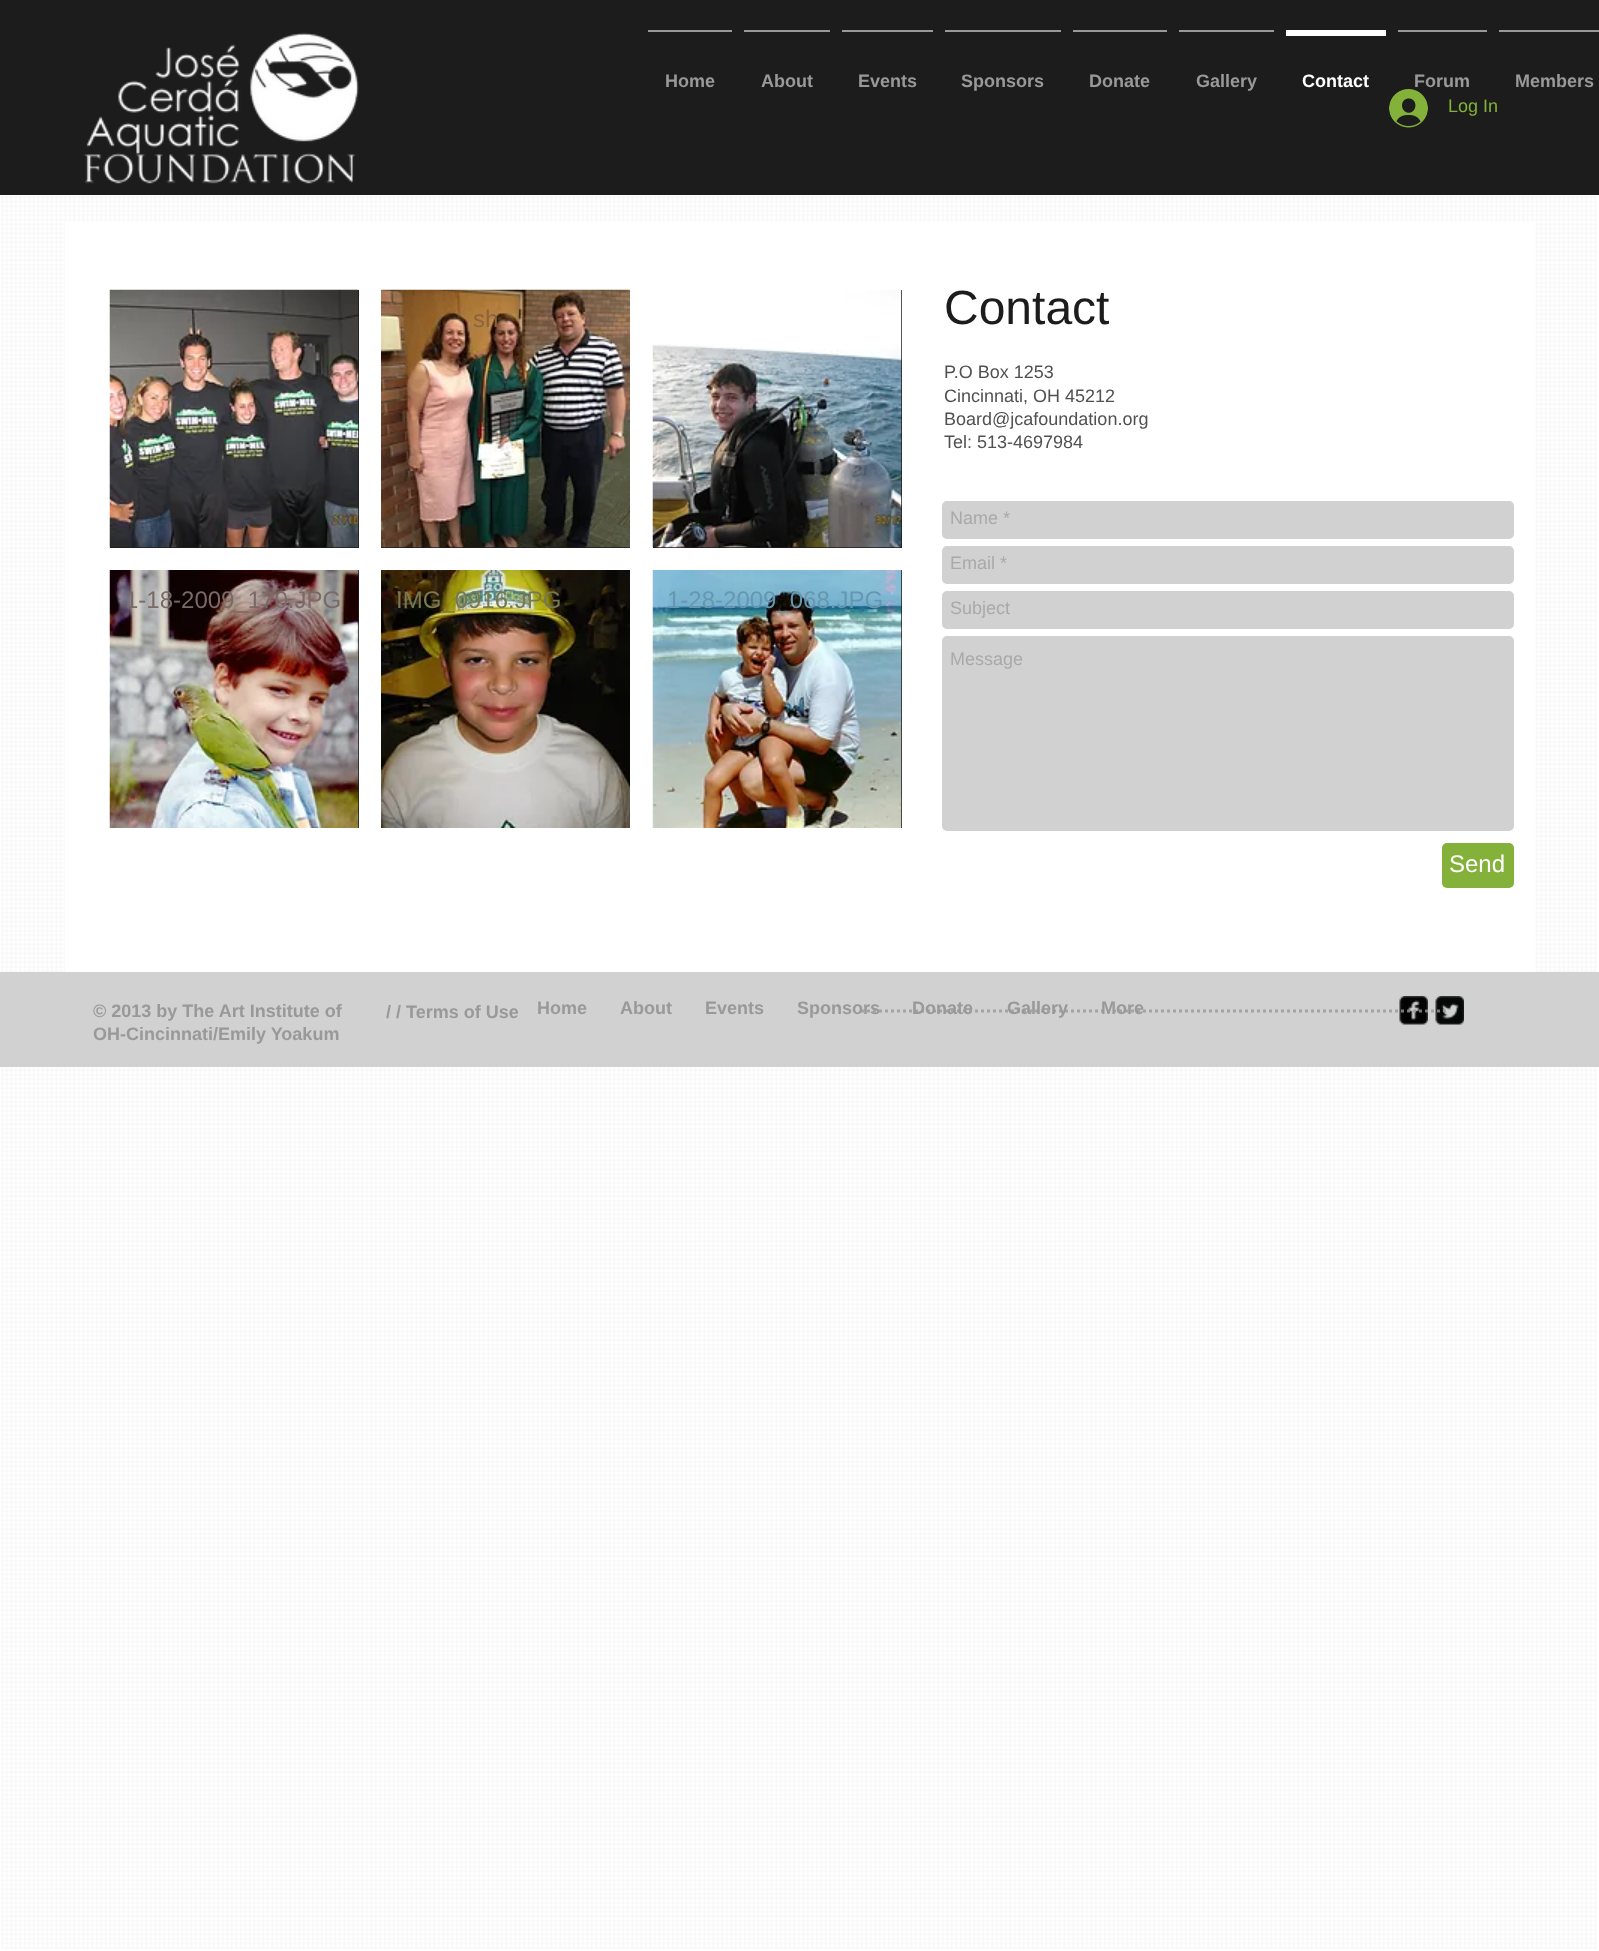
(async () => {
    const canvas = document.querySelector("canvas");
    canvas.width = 1599;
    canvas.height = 1951;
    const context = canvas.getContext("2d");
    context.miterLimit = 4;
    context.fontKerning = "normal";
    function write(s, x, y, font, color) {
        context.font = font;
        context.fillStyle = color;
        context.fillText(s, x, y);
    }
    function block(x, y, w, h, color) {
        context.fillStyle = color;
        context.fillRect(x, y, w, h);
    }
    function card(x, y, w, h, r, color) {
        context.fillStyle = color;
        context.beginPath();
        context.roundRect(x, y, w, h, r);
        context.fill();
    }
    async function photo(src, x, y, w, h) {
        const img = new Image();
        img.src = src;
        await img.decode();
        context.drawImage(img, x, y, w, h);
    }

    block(0, 0, 1599, 1951, "rgb(255, 255, 255)");
    block(0, 0, 1599, 195, "rgb(28, 28, 28)");
    await photo("media/1.png", 84, 32, 275, 152);
    block(648, 30, 84, 2, "rgb(153, 153, 153)");
    write("Home", 665, 87, "bold 18px Liberation Sans", "rgb(153, 153, 153)");
    block(744, 30, 86, 2, "rgb(153, 153, 153)");
    write("About", 761, 87, "bold 18px Liberation Sans", "rgb(153, 153, 153)");
    block(842, 30, 91, 2, "rgb(153, 153, 153)");
    write("Events", 858, 87, "bold 18px Liberation Sans", "rgb(153, 153, 153)");
    block(945, 30, 116, 2, "rgb(153, 153, 153)");
    write("Sponsors", 961, 87, "bold 18px Liberation Sans", "rgb(153, 153, 153)");
    block(1073, 30, 94, 2, "rgb(153, 153, 153)");
    write("Donate", 1089, 87, "bold 18px Liberation Sans", "rgb(153, 153, 153)");
    block(1179, 30, 95, 2, "rgb(153, 153, 153)");
    write("Gallery", 1196, 87, "bold 18px Liberation Sans", "rgb(153, 153, 153)");
    block(1286, 30, 100, 6, "rgb(255, 255, 255)");
    write("Contact", 1302, 87, "bold 18px Liberation Sans", "rgb(255, 255, 255)");
    block(1398, 30, 89, 2, "rgb(153, 153, 153)");
    write("Forum", 1414, 87, "bold 18px Liberation Sans", "rgb(153, 153, 153)");
    block(1499, 30, 100, 2, "rgb(153, 153, 153)");
    write("Members", 1515, 87, "bold 18px Liberation Sans", "rgb(153, 153, 153)");
    await photo("media/2.png", 1389, 89, 39, 39);
    write("Log In", 1448, 112, "18px Liberation Sans", "rgb(131, 177, 58)");
    await photo("media/11.png", 1, 196, 1596, 1753);
    block(65, 222, 1470, 750, "rgb(255, 255, 255)");
    block(110, 290, 249, 258, "rgb(28, 28, 28)");
    await photo("media/3.png", 109, 289, 250, 259);
    block(381, 547, 249, 1, "rgb(28, 28, 28)");
    await photo("media/4.png", 381, 289, 249, 259);
    write("sh", 473, 327, "24px Liberation Sans", "rgb(141, 99, 61)");
    block(653, 290, 249, 258, "rgb(28, 28, 28)");
    await photo("media/5.png", 652, 290, 250, 258);
    block(358, 570, 1, 258, "rgb(28, 28, 28)");
    await photo("media/6.png", 109, 570, 250, 258);
    write("1-18-2009_170.JPG", 125, 608, "24px Liberation Sans", "rgb(121, 106, 103)");
    await photo("media/7.png", 381, 570, 249, 258);
    write("IMG_0916.JPG", 396, 608, "24px Liberation Sans", "rgb(118, 121, 82)");
    block(901, 570, 1, 258, "rgb(28, 28, 28)");
    await photo("media/8.png", 652, 570, 250, 258);
    write("1-28-2009_068.JPG", 667, 608, "24px Liberation Sans", "rgb(101, 152, 176)");
    write("Contact", 944, 324, "48px Liberation Sans", "rgb(28, 28, 28)");
    write("P.O Box 1253", 944, 378, "18px Liberation Sans", "rgb(81, 81, 81)");
    write("Cincinnati, OH 45212", 944, 402, "18px Liberation Sans", "rgb(81, 81, 81)");
    write("Board@jcafoundation.org", 944, 425, "18px Liberation Sans", "rgb(81, 81, 81)");
    write("Tel: 513-4697984", 944, 448, "18px Liberation Sans", "rgb(81, 81, 81)");
    card(942, 501, 572, 38, 5, "rgb(209, 209, 209)");
    write("Name *", 950, 524, "18px Liberation Sans", "rgb(169, 169, 169)");
    card(942, 546, 572, 38, 5, "rgb(209, 209, 209)");
    write("Email *", 950, 569, "18px Liberation Sans", "rgb(169, 169, 169)");
    card(942, 591, 572, 38, 5, "rgb(209, 209, 209)");
    write("Subject", 950, 614, "18px Liberation Sans", "rgb(169, 169, 169)");
    card(942, 636, 572, 195, 5, "rgb(209, 209, 209)");
    write("Message", 950, 665, "18px Liberation Sans", "rgb(169, 169, 169)");
    card(1442, 843, 72, 45, 5, "rgb(131, 177, 58)");
    write("Send", 1449, 872, "24px Liberation Sans", "rgb(255, 255, 255)");
    block(0, 972, 1599, 95, "rgb(209, 209, 209)");
    write("© 2013 by The Art Institute of", 93, 1017, "bold 18px Liberation Sans", "rgb(153, 153, 153)");
    write("OH-Cincinnati/Emily Yoakum", 93, 1040, "bold 18px Liberation Sans", "rgb(153, 153, 153)");
    write("/ / Terms of Use", 386, 1018, "bold 18px Liberation Sans", "rgb(153, 153, 153)");
    write("Home", 537, 1014, "bold 18px Liberation Sans", "rgb(153, 153, 153)");
    write("About", 620, 1014, "bold 18px Liberation Sans", "rgb(153, 153, 153)");
    write("Events", 705, 1014, "bold 18px Liberation Sans", "rgb(153, 153, 153)");
    write("Sponsors", 797, 1014, "bold 18px Liberation Sans", "rgb(153, 153, 153)");
    write("Donate", 912, 1014, "bold 18px Liberation Sans", "rgb(153, 153, 153)");
    write("Gallery", 1007, 1014, "bold 18px Liberation Sans", "rgb(153, 153, 153)");
    write("More", 1101, 1014, "bold 18px Liberation Sans", "rgb(153, 153, 153)");
    await photo("media/9.png", 1399, 996, 29, 29);
    await photo("media/10.png", 1435, 996, 29, 29);
    context.beginPath();
    context.moveTo(861, 1011);
    context.lineTo(1446, 1011);
    context.strokeStyle = "rgba(153, 153, 153, 0.8)";
    context.lineWidth = 3;
    context.setLineDash([3, 3]);
    context.stroke();
})();
